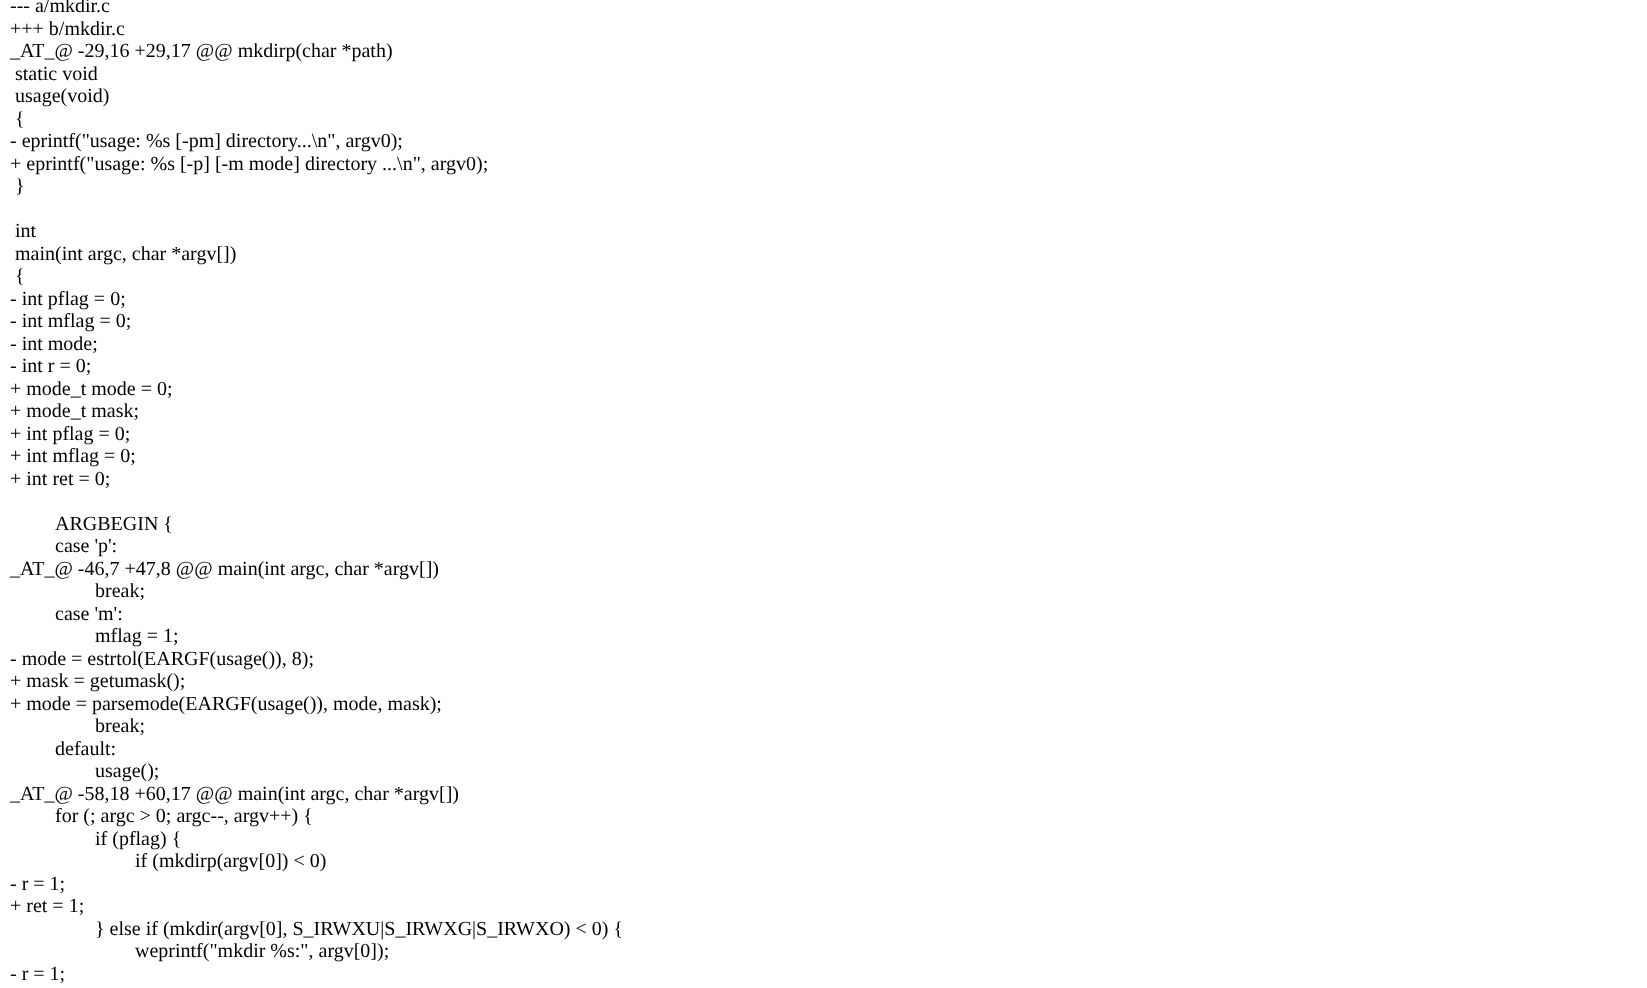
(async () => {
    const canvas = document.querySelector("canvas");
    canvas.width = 1647;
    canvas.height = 988;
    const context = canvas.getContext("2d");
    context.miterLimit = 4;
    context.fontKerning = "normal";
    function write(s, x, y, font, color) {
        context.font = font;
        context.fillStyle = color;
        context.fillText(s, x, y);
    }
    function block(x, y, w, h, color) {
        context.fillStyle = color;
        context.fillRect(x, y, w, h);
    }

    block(0, 0, 1647, 988, "rgb(255, 255, 255)");
    write("--- a/mkdir.c", 10, 12, "20px Liberation Serif", "rgb(0, 0, 0)");
    write("+++ b/mkdir.c", 10, 35, "20px Liberation Serif", "rgb(0, 0, 0)");
    write("_AT_@ -29,16 +29,17 @@ mkdirp(char *path)", 10, 57, "20px Liberation Serif", "rgb(0, 0, 0)");
    write("static void", 15, 80, "20px Liberation Serif", "rgb(0, 0, 0)");
    write("usage(void)", 15, 102, "20px Liberation Serif", "rgb(0, 0, 0)");
    write("{", 15, 125, "20px Liberation Serif", "rgb(0, 0, 0)");
    write("- eprintf(\"usage: %s [-pm] directory...\\n\", argv0);", 10, 147, "20px Liberation Serif", "rgb(0, 0, 0)");
    write("+ eprintf(\"usage: %s [-p] [-m mode] directory ...\\n\", argv0);", 10, 170, "20px Liberation Serif", "rgb(0, 0, 0)");
    write("}", 15, 192, "20px Liberation Serif", "rgb(0, 0, 0)");
    write("int", 15, 237, "20px Liberation Serif", "rgb(0, 0, 0)");
    write("main(int argc, char *argv[])", 15, 260, "20px Liberation Serif", "rgb(0, 0, 0)");
    write("{", 15, 282, "20px Liberation Serif", "rgb(0, 0, 0)");
    write("- int pflag = 0;", 10, 305, "20px Liberation Serif", "rgb(0, 0, 0)");
    write("- int mflag = 0;", 10, 327, "20px Liberation Serif", "rgb(0, 0, 0)");
    write("- int mode;", 10, 350, "20px Liberation Serif", "rgb(0, 0, 0)");
    write("- int r = 0;", 10, 372, "20px Liberation Serif", "rgb(0, 0, 0)");
    write("+ mode_t mode = 0;", 10, 395, "20px Liberation Serif", "rgb(0, 0, 0)");
    write("+ mode_t mask;", 10, 417, "20px Liberation Serif", "rgb(0, 0, 0)");
    write("+ int pflag = 0;", 10, 440, "20px Liberation Serif", "rgb(0, 0, 0)");
    write("+ int mflag = 0;", 10, 462, "20px Liberation Serif", "rgb(0, 0, 0)");
    write("+ int ret = 0;", 10, 485, "20px Liberation Serif", "rgb(0, 0, 0)");
    write("ARGBEGIN {", 55, 530, "20px Liberation Serif", "rgb(0, 0, 0)");
    write("case 'p':", 55, 552, "20px Liberation Serif", "rgb(0, 0, 0)");
    write("_AT_@ -46,7 +47,8 @@ main(int argc, char *argv[])", 10, 575, "20px Liberation Serif", "rgb(0, 0, 0)");
    write("break;", 95, 597, "20px Liberation Serif", "rgb(0, 0, 0)");
    write("case 'm':", 55, 620, "20px Liberation Serif", "rgb(0, 0, 0)");
    write("mflag = 1;", 95, 642, "20px Liberation Serif", "rgb(0, 0, 0)");
    write("- mode = estrtol(EARGF(usage()), 8);", 10, 665, "20px Liberation Serif", "rgb(0, 0, 0)");
    write("+ mask = getumask();", 10, 687, "20px Liberation Serif", "rgb(0, 0, 0)");
    write("+ mode = parsemode(EARGF(usage()), mode, mask);", 10, 710, "20px Liberation Serif", "rgb(0, 0, 0)");
    write("break;", 95, 732, "20px Liberation Serif", "rgb(0, 0, 0)");
    write("default:", 55, 755, "20px Liberation Serif", "rgb(0, 0, 0)");
    write("usage();", 95, 777, "20px Liberation Serif", "rgb(0, 0, 0)");
    write("_AT_@ -58,18 +60,17 @@ main(int argc, char *argv[])", 10, 800, "20px Liberation Serif", "rgb(0, 0, 0)");
    write("for (; argc > 0; argc--, argv++) {", 55, 822, "20px Liberation Serif", "rgb(0, 0, 0)");
    write("if (pflag) {", 95, 845, "20px Liberation Serif", "rgb(0, 0, 0)");
    write("if (mkdirp(argv[0]) < 0)", 135, 867, "20px Liberation Serif", "rgb(0, 0, 0)");
    write("- r = 1;", 10, 890, "20px Liberation Serif", "rgb(0, 0, 0)");
    write("+ ret = 1;", 10, 912, "20px Liberation Serif", "rgb(0, 0, 0)");
    write("} else if (mkdir(argv[0], S_IRWXU|S_IRWXG|S_IRWXO) < 0) {", 95, 935, "20px Liberation Serif", "rgb(0, 0, 0)");
    write("weprintf(\"mkdir %s:\", argv[0]);", 135, 957, "20px Liberation Serif", "rgb(0, 0, 0)");
    write("- r = 1;", 10, 980, "20px Liberation Serif", "rgb(0, 0, 0)");
})();
